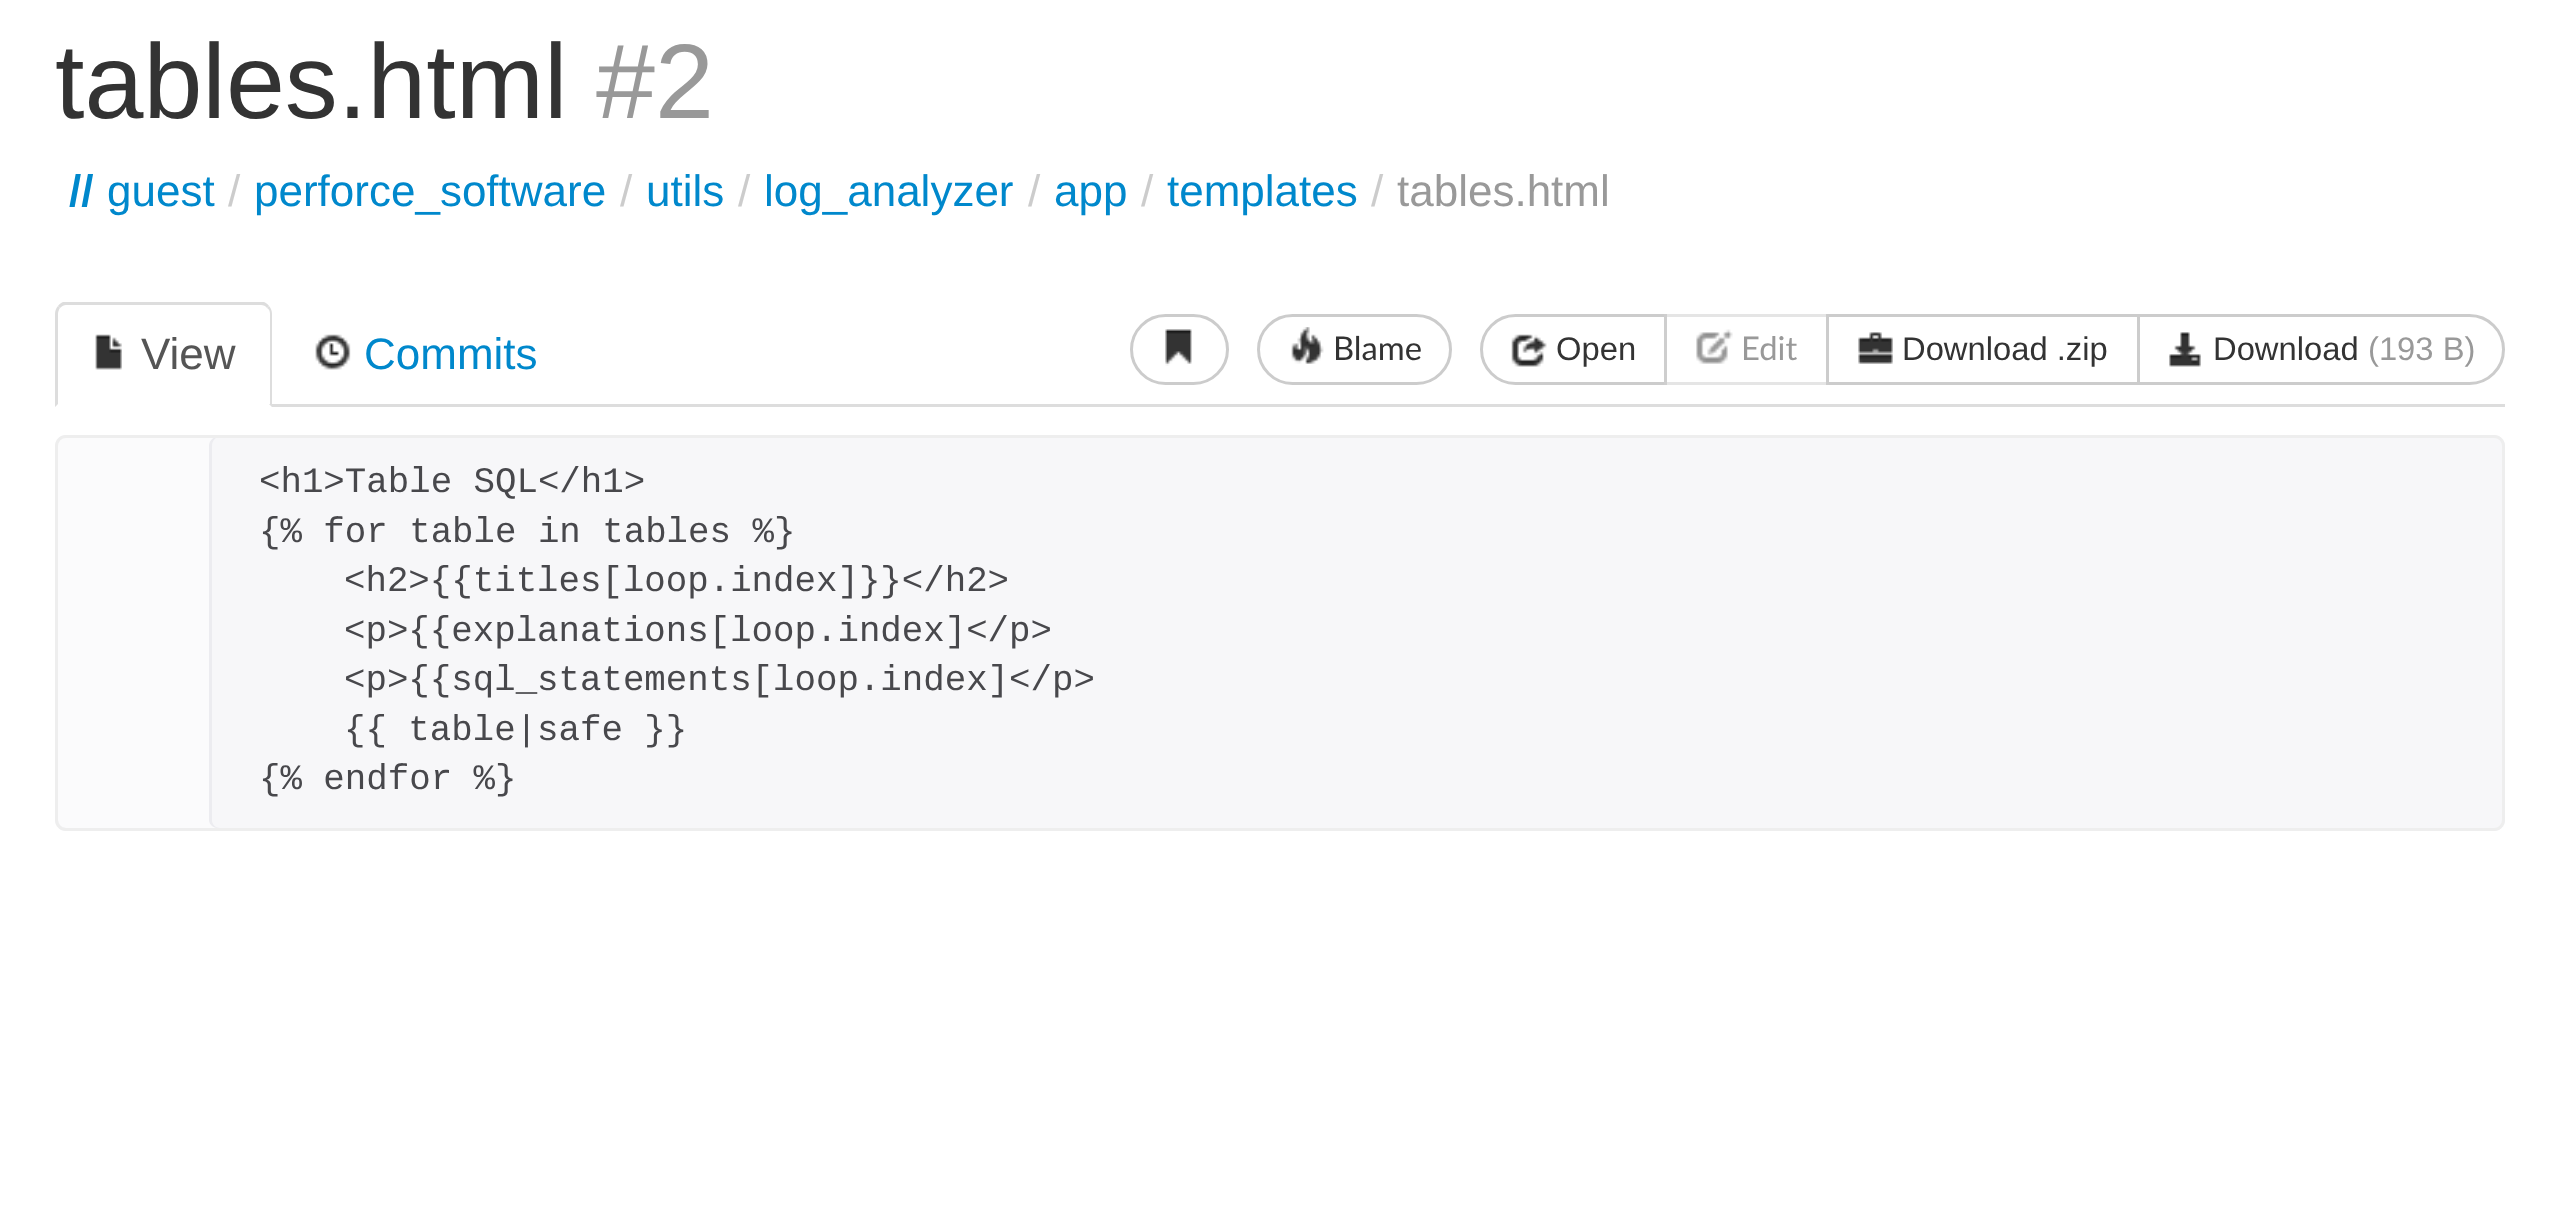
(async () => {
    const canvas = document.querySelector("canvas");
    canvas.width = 2558;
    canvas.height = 1212;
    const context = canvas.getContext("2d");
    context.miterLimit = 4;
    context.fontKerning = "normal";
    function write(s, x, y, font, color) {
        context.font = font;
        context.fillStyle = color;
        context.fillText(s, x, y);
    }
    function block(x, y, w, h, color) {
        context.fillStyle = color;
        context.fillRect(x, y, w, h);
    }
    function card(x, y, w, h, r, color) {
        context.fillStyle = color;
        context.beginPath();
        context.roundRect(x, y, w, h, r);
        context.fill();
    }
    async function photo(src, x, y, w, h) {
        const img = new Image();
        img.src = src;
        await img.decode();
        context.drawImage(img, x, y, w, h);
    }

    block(0, 0, 2558, 1212, "rgb(255, 255, 255)");
    write("tables.html", 55, 118, "106px Arimo", "rgb(51, 51, 51)");
    write("#2", 596, 118, "106px Arimo", "rgb(153, 153, 153)");
    write("//", 69, 206, "bold 44px Arimo", "rgb(0, 136, 204)");
    write("guest", 107, 206, "44px Arimo", "rgb(0, 136, 204)");
    write("/", 228, 206, "44px Arimo", "rgb(204, 204, 204)");
    write("perforce_software", 254, 206, "44px Arimo", "rgb(0, 136, 204)");
    write("/", 620, 206, "44px Arimo", "rgb(204, 204, 204)");
    write("utils", 646, 206, "44px Arimo", "rgb(0, 136, 204)");
    write("/", 738, 206, "44px Arimo", "rgb(204, 204, 204)");
    write("log_analyzer", 764, 206, "44px Arimo", "rgb(0, 136, 204)");
    write("/", 1028, 206, "44px Arimo", "rgb(204, 204, 204)");
    write("app", 1054, 206, "44px Arimo", "rgb(0, 136, 204)");
    write("/", 1141, 206, "44px Arimo", "rgb(204, 204, 204)");
    write("templates", 1167, 206, "44px Arimo", "rgb(0, 136, 204)");
    write("/", 1371, 206, "44px Arimo", "rgb(204, 204, 204)");
    write("tables.html", 1397, 206, "44px Arimo", "rgb(153, 153, 153)");
    block(272, 404, 2233, 3, "rgb(221, 221, 221)");
    context.beginPath();
    context.moveTo(66, 305);
    context.bezierCurveTo(64, 305, 62, 306, 60, 308);
    context.lineTo(58, 306);
    context.bezierCurveTo(59, 304, 61, 303, 63, 302);
    context.lineTo(264, 302);
    context.bezierCurveTo(266, 303, 268, 304, 269, 306);
    context.lineTo(267, 308);
    context.bezierCurveTo(266, 306, 263, 305, 261, 305);
    context.closePath();
    context.fill();
    context.beginPath();
    context.moveTo(269, 306);
    context.bezierCurveTo(271, 308, 272, 311, 272, 314);
    context.lineTo(272, 407);
    context.lineTo(269, 404);
    context.lineTo(270, 404);
    context.lineTo(270, 314);
    context.bezierCurveTo(270, 311, 269, 309, 267, 308);
    context.closePath();
    context.fill();
    context.beginPath();
    context.moveTo(55, 407);
    context.lineTo(58, 404);
    context.lineTo(58, 314);
    context.bezierCurveTo(58, 312, 59, 309, 60, 308);
    context.lineTo(58, 306);
    context.bezierCurveTo(56, 308, 55, 311, 55, 314);
    context.closePath();
    context.fill();
    await photo("media/1.png", 95, 334, 27, 36);
    write("View", 141, 369, "44px Arimo", "rgb(85, 85, 85)");
    await photo("media/2.png", 315, 334, 36, 36);
    write("Commits", 364, 369, "44px Arimo", "rgb(0, 136, 204)");
    context.beginPath();
    context.roundRect(1131.5, 315.5, 96, 68, 34);
    context.strokeStyle = "rgb(204, 204, 204)";
    context.lineWidth = 3;
    context.stroke();
    await photo("media/3.png", 1165, 329, 27, 37);
    context.beginPath();
    context.roundRect(1258.5, 315.5, 192, 68, 34);
    context.stroke();
    await photo("media/4.png", 1291, 327, 33, 37);
    write("Blame", 1333, 360, "32.75px Lato", "rgb(51, 51, 51)");
    context.beginPath();
    context.roundRect(1481.5, 315.5, 184, 68, [34, 0, 0, 34]);
    context.stroke();
    await photo("media/5.png", 1511, 334, 36, 33);
    write("Open", 1556, 360, "32.75px Arimo", "rgb(51, 51, 51)");
    block(1664, 314, 3, 71, "rgba(255, 255, 255, 0.5)");
    context.strokeStyle = "rgba(0, 0, 0, 0.1)";
    context.strokeRect(1665.5, 315.5, 162, 68);
    await photo("media/6.png", 1696, 329, 37, 35);
    write("Edit", 1741, 360, "32.75px Lato", "rgb(153, 153, 153)");
    context.strokeStyle = "rgb(204, 204, 204)";
    context.strokeRect(1827.5, 315.5, 311, 68);
    await photo("media/7.png", 1858, 332, 35, 32);
    write("Download .zip", 1902, 360, "32.75px Arimo", "rgb(51, 51, 51)");
    context.fillStyle = "rgb(255, 255, 255)";
    context.beginPath();
    context.roundRect(2138.5, 315.5, 365, 68, [0, 34, 34, 0]);
    context.fill();
    context.stroke();
    await photo("media/8.png", 2169, 332, 32, 35);
    write("Download", 2213, 360, "32.75px Arimo", "rgb(51, 51, 51)");
    write("(193 B)", 2368, 360, "32.75px Arimo", "rgb(153, 153, 153)");
    card(55, 435, 2450, 396, 11, "rgb(247, 247, 249)");
    context.fillStyle = "rgb(236, 236, 240)";
    context.beginPath();
    context.moveTo(66, 437);
    context.bezierCurveTo(62, 437, 58, 441, 58, 445);
    context.lineTo(58, 820);
    context.bezierCurveTo(58, 824, 62, 828, 66, 828);
    context.lineTo(220, 828);
    context.bezierCurveTo(215, 828, 212, 824, 212, 820);
    context.lineTo(212, 446);
    context.bezierCurveTo(212, 441, 215, 437, 220, 437);
    context.closePath();
    context.fill();
    context.fillStyle = "rgb(251, 251, 252)";
    context.beginPath();
    context.moveTo(66, 437);
    context.bezierCurveTo(62, 437, 58, 441, 58, 445);
    context.lineTo(58, 820);
    context.bezierCurveTo(58, 824, 62, 828, 66, 828);
    context.lineTo(217, 828);
    context.bezierCurveTo(213, 828, 209, 824, 209, 820);
    context.lineTo(209, 446);
    context.bezierCurveTo(209, 441, 213, 437, 217, 437);
    context.closePath();
    context.fill();
    context.beginPath();
    context.roundRect(56.5, 436.5, 2447, 393, 9.5);
    context.strokeStyle = "rgb(238, 238, 238)";
    context.stroke();
    write("<h1>Table SQL<\/h1>", 259, 492, "35.75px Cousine", "rgb(72, 72, 76)");
    write("{% for table in tables %}", 259, 542, "35.75px Cousine", "rgb(72, 72, 76)");
    write("<h2>{{titles[loop.index]}}<\/h2>", 344, 591, "35.75px Cousine", "rgb(72, 72, 76)");
    write("<p>{{explanations[loop.index]<\/p>", 344, 641, "35.75px Cousine", "rgb(72, 72, 76)");
    write("<p>{{sql_statements[loop.index]<\/p>", 344, 690, "35.75px Cousine", "rgb(72, 72, 76)");
    write("{{ table|safe }}", 344, 740, "35.75px Cousine", "rgb(72, 72, 76)");
    write("{% endfor %}", 259, 789, "35.75px Cousine", "rgb(72, 72, 76)");
})();
